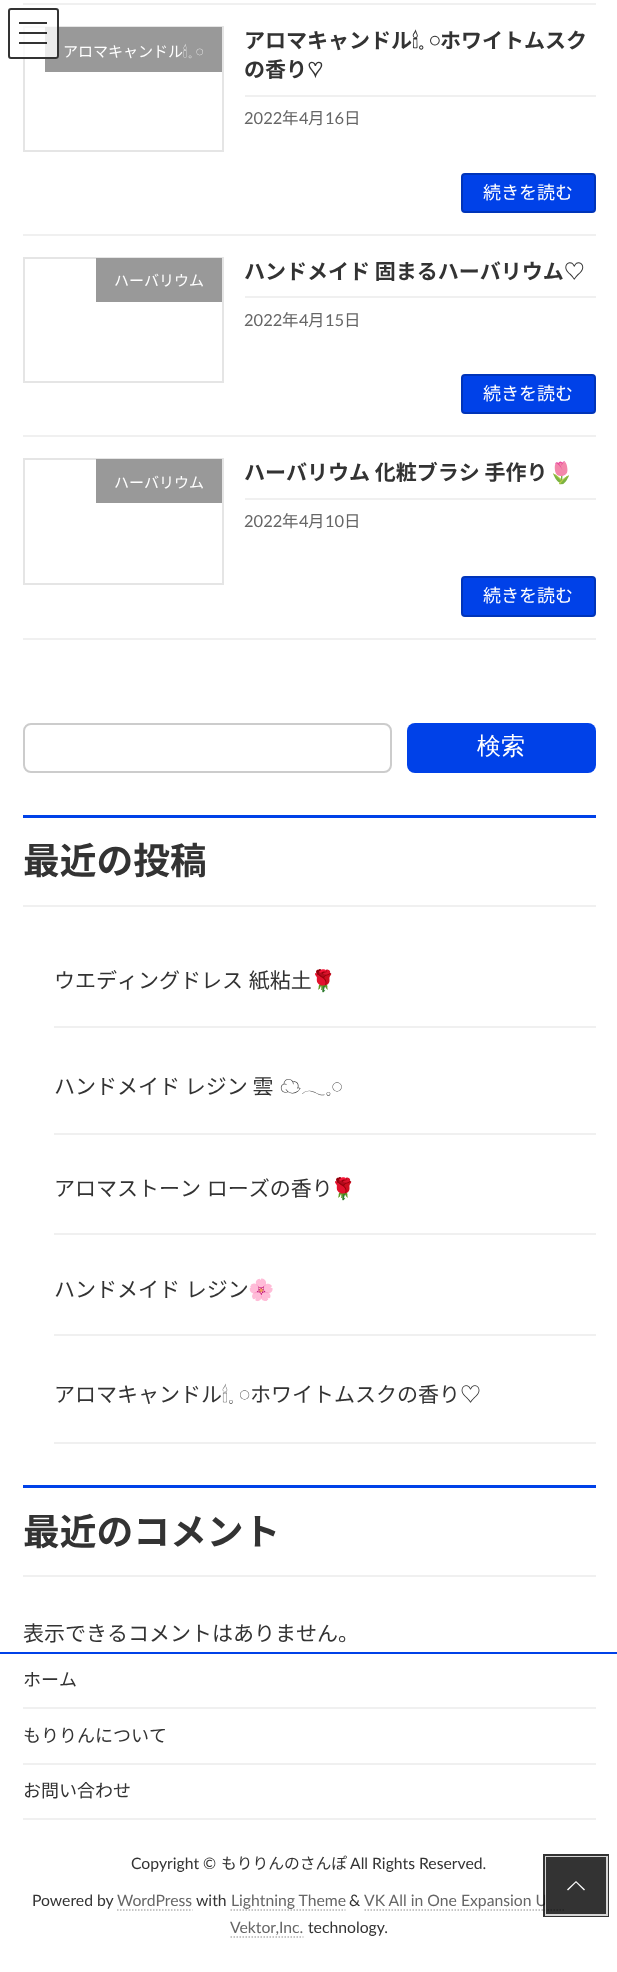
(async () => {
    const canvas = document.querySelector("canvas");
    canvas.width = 617;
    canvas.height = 1972;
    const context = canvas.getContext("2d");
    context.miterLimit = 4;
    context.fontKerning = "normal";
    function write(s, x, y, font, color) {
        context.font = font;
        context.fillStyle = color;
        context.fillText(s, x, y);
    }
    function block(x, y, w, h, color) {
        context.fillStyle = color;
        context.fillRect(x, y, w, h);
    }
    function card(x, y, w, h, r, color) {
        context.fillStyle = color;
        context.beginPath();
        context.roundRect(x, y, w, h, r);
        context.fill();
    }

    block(0, 0, 617, 1972, "rgb(255, 255, 255)");
    context.strokeStyle = "rgb(229, 229, 229)";
    context.lineWidth = 2;
    context.strokeRect(24, 27, 199, 124);
    block(45, 27, 177, 45, "rgb(153, 153, 153)");
    card(8, 8, 51, 51, 3, "rgba(255, 255, 255, 0.8)");
    block(19, 22, 28, 2, "rgb(51, 51, 51)");
    block(19, 32, 28, 2, "rgba(0, 0, 0, 0.8)");
    block(19, 42, 28, 2, "rgba(0, 0, 0, 0.8)");
    context.beginPath();
    context.roundRect(9, 9, 49, 49, 2);
    context.strokeStyle = "rgb(51, 51, 51)";
    context.stroke();
    block(23, 3, 573, 2, "rgb(240, 240, 240)");
    block(23, 234, 573, 2, "rgb(240, 240, 240)");
    write("アロマキャンドル", 63, 57, "15px Noto Sans JP", "rgb(255, 255, 255)");
    write("🕯", 183, 57, "15px FreeSerif", "rgb(255, 255, 255)");
    write("𓈒 𓏸", 188, 57, "15px Noto Sans Egyptian Hieroglyphs", "rgb(255, 255, 255)");
    block(245, 95, 351, 2, "rgb(240, 240, 240)");
    write("アロマキャンドル", 244, 48, "bold 21px Noto Sans JP", "rgb(51, 51, 51)");
    write("🕯", 412, 48, "bold 21px FreeSerif", "rgb(51, 51, 51)");
    write("𓈒 𓏸", 418, 48, "bold 21px Noto Sans Egyptian Hieroglyphs", "rgb(51, 51, 51)");
    write("ホワイトムスク", 440, 48, "bold 21px Noto Sans JP", "rgb(51, 51, 51)");
    write("の香り", 244, 77, "bold 21px Noto Sans JP", "rgb(51, 51, 51)");
    write("♡", 307, 77, "bold 21px FreeSerif", "rgb(51, 51, 51)");
    write("2022", 244, 124, "16.5px Lato", "rgb(102, 102, 102)");
    write("年", 282, 124, "16.5px Noto Sans JP", "rgb(102, 102, 102)");
    write("4", 299, 124, "16.5px Lato", "rgb(102, 102, 102)");
    write("月", 308, 124, "16.5px Noto Sans JP", "rgb(102, 102, 102)");
    write("16", 325, 124, "16.5px Lato", "rgb(102, 102, 102)");
    write("日", 344, 124, "16.5px Noto Sans JP", "rgb(102, 102, 102)");
    context.fillStyle = "rgb(0, 65, 232)";
    context.beginPath();
    context.roundRect(462, 174, 133, 38, 3);
    context.fill();
    context.strokeStyle = "rgb(0, 52, 185)";
    context.stroke();
    write("続きを読む", 483, 199, "18px Noto Sans JP", "rgb(255, 255, 255)");
    block(23, 435, 573, 2, "rgb(240, 240, 240)");
    context.strokeStyle = "rgb(229, 229, 229)";
    context.strokeRect(24, 258, 199, 124);
    block(96, 258, 126, 44, "rgb(153, 153, 153)");
    write("ハーバリウム", 114, 286, "15px Noto Sans JP", "rgb(255, 255, 255)");
    block(245, 296, 351, 2, "rgb(240, 240, 240)");
    write("ハンドメイド 固まるハーバリウム♡", 244, 279, "bold 21px Noto Sans JP", "rgb(51, 51, 51)");
    write("2022", 244, 326, "16.5px Lato", "rgb(102, 102, 102)");
    write("年", 282, 326, "16.5px Noto Sans JP", "rgb(102, 102, 102)");
    write("4", 299, 326, "16.5px Lato", "rgb(102, 102, 102)");
    write("月", 308, 326, "16.5px Noto Sans JP", "rgb(102, 102, 102)");
    write("15", 325, 326, "16.5px Lato", "rgb(102, 102, 102)");
    write("日", 344, 326, "16.5px Noto Sans JP", "rgb(102, 102, 102)");
    context.fillStyle = "rgb(0, 65, 232)";
    context.beginPath();
    context.roundRect(462, 375, 133, 38, 3);
    context.fill();
    context.strokeStyle = "rgb(0, 52, 185)";
    context.stroke();
    write("続きを読む", 483, 400, "18px Noto Sans JP", "rgb(255, 255, 255)");
    block(23, 638, 573, 2, "rgb(240, 240, 240)");
    context.strokeStyle = "rgb(229, 229, 229)";
    context.strokeRect(24, 459, 199, 125);
    block(96, 459, 126, 44, "rgb(153, 153, 153)");
    write("ハーバリウム", 114, 488, "15px Noto Sans JP", "rgb(255, 255, 255)");
    block(245, 498, 351, 2, "rgb(240, 240, 240)");
    write("ハーバリウム 化粧ブラシ 手作り", 244, 480, "bold 21px Noto Sans JP", "rgb(51, 51, 51)");
    write("🌷", 548, 480, "bold 21px Noto Color Emoji", "rgb(51, 51, 51)");
    write("2022", 244, 527, "16.5px Lato", "rgb(102, 102, 102)");
    write("年", 282, 527, "16.5px Noto Sans JP", "rgb(102, 102, 102)");
    write("4", 299, 527, "16.5px Lato", "rgb(102, 102, 102)");
    write("月", 308, 527, "16.5px Noto Sans JP", "rgb(102, 102, 102)");
    write("10", 325, 527, "16.5px Lato", "rgb(102, 102, 102)");
    write("日", 344, 527, "16.5px Noto Sans JP", "rgb(102, 102, 102)");
    context.fillStyle = "rgb(0, 65, 232)";
    context.beginPath();
    context.roundRect(462, 577, 133, 39, 3);
    context.fill();
    context.strokeStyle = "rgb(0, 52, 185)";
    context.stroke();
    write("続きを読む", 483, 602, "18px Noto Sans JP", "rgb(255, 255, 255)");
    context.beginPath();
    context.roundRect(24, 724, 367, 48, 7);
    context.strokeStyle = "rgb(204, 204, 204)";
    context.stroke();
    card(407, 723, 189, 50, 8, "rgb(0, 65, 232)");
    write("検索", 477, 754, "500 24px WenQuanYi Zen Hei", "rgb(255, 255, 255)");
    block(23, 815, 573, 3, "rgb(0, 65, 232)");
    block(23, 905, 573, 2, "rgb(240, 240, 240)");
    write("最近の投稿", 23, 874, "bold 36.75px Noto Sans JP", "rgb(51, 51, 51)");
    block(54, 1026, 542, 2, "rgb(240, 240, 240)");
    context.wordSpacing = "1px";
    write("ウエディングドレス 紙粘土", 54, 988, "21px Noto Sans JP", "rgb(51, 51, 51)");
    context.wordSpacing = "0px";
    write("🌹", 310, 988, "21px Noto Color Emoji", "rgb(51, 51, 51)");
    block(54, 1133, 542, 2, "rgb(240, 240, 240)");
    write("ハンドメイド レジン 雲", 54, 1094, "21px Noto Sans JP", "rgb(51, 51, 51)");
    write("☁", 280, 1094, "21px Noto Sans JP", "rgb(51, 51, 51)");
    write("𓂃𓈒𓏸", 301, 1094, "21px Noto Sans Egyptian Hieroglyphs", "rgb(51, 51, 51)");
    block(54, 1233, 542, 2, "rgb(240, 240, 240)");
    context.wordSpacing = "1px";
    write("アロマストーン ローズの香り", 54, 1196, "21px Noto Sans JP", "rgb(51, 51, 51)");
    context.wordSpacing = "0px";
    write("🌹", 330, 1196, "21px Noto Color Emoji", "rgb(51, 51, 51)");
    block(54, 1334, 542, 2, "rgb(240, 240, 240)");
    context.wordSpacing = "1px";
    write("ハンドメイド レジン", 54, 1297, "21px Noto Sans JP", "rgb(51, 51, 51)");
    context.wordSpacing = "0px";
    write("🌸", 248, 1297, "21px Noto Color Emoji", "rgb(51, 51, 51)");
    block(54, 1442, 542, 2, "rgb(240, 240, 240)");
    write("アロマキャンドル", 54, 1402, "21px Noto Sans JP", "rgb(51, 51, 51)");
    write("🕯", 222, 1402, "21px FreeSerif", "rgb(51, 51, 51)");
    write("𓈒 𓏸", 228, 1402, "21px Noto Sans Egyptian Hieroglyphs", "rgb(51, 51, 51)");
    write("ホワイトムスクの香り♡", 250, 1402, "21px Noto Sans JP", "rgb(51, 51, 51)");
    block(23, 1485, 573, 3, "rgb(0, 65, 232)");
    block(23, 1575, 573, 2, "rgb(240, 240, 240)");
    write("最近のコメント", 23, 1545, "bold 36.75px Noto Sans JP", "rgb(51, 51, 51)");
    write("表示できるコメントはありません。", 23, 1641, "21px Noto Sans JP", "rgb(51, 51, 51)");
    block(0, 1652, 617, 2, "rgb(0, 65, 232)");
    block(23, 1707, 573, 2, "rgb(240, 240, 240)");
    write("ホーム", 23, 1686, "18px Noto Sans JP", "rgb(51, 51, 51)");
    block(23, 1763, 573, 2, "rgb(240, 240, 240)");
    write("もりりんについて", 23, 1742, "18px Noto Sans JP", "rgb(51, 51, 51)");
    block(23, 1818, 573, 2, "rgb(240, 240, 240)");
    write("お問い合わせ", 23, 1797, "18px Noto Sans JP", "rgb(51, 51, 51)");
    write("Copyright ©", 131, 1869, "15.75px Lato", "rgb(51, 51, 51)");
    write("もりりんのさんぽ", 221, 1869, "15.75px Noto Sans JP", "rgb(51, 51, 51)");
    write("All Rights Reserved.", 350, 1869, "15.75px Lato", "rgb(51, 51, 51)");
    write("Powered by", 32, 1906, "15.75px Lato", "rgb(51, 51, 51)");
    write("WordPress", 117, 1906, "15.75px Lato", "rgb(102, 102, 102)");
    context.beginPath();
    context.moveTo(117, 1910);
    context.lineTo(192.5, 1910);
    context.strokeStyle = "rgb(179, 179, 179)";
    context.lineWidth = 1.5;
    context.setLineDash([1.5, 1.5]);
    context.stroke();
    write("with", 196, 1906, "15.75px Lato", "rgb(51, 51, 51)");
    write("Lightning Theme", 231, 1906, "15.75px Lato", "rgb(102, 102, 102)");
    context.beginPath();
    context.moveTo(230.5, 1910);
    context.lineTo(345.5, 1910);
    context.stroke();
    write("&", 349, 1906, "15.75px Lato", "rgb(51, 51, 51)");
    write("VK All in One Expansion U", 364, 1906, "15.75px Lato", "rgb(102, 102, 102)");
    context.beginPath();
    context.moveTo(364.5, 1910);
    context.lineTo(565.5, 1910);
    context.stroke();
    write("Vektor,Inc.", 230, 1933, "15.75px Lato", "rgb(102, 102, 102)");
    context.beginPath();
    context.moveTo(230.5, 1937);
    context.lineTo(303.5, 1937);
    context.stroke();
    write("technology.", 308, 1933, "15.75px Lato", "rgb(51, 51, 51)");
    context.strokeStyle = "rgba(0, 0, 0, 0.8)";
    context.lineWidth = 3;
    context.setLineDash([]);
    context.strokeRect(544.5, 1855.5, 63, 60);
    context.strokeStyle = "rgba(255, 255, 255, 0.8)";
    context.lineWidth = 2;
    context.strokeRect(546, 1857, 61, 58);
    block(546, 1857, 60, 57, "rgba(0, 0, 0, 0.8)");
    context.fillStyle = "rgb(255, 255, 255)";
    context.beginPath();
    context.moveTo(585, 1889.5);
    context.lineTo(584, 1890.5);
    context.lineTo(576, 1882.5);
    context.lineTo(568, 1890.5);
    context.lineTo(567, 1889.5);
    context.lineTo(576, 1881);
    context.closePath();
    context.fill();
})();
